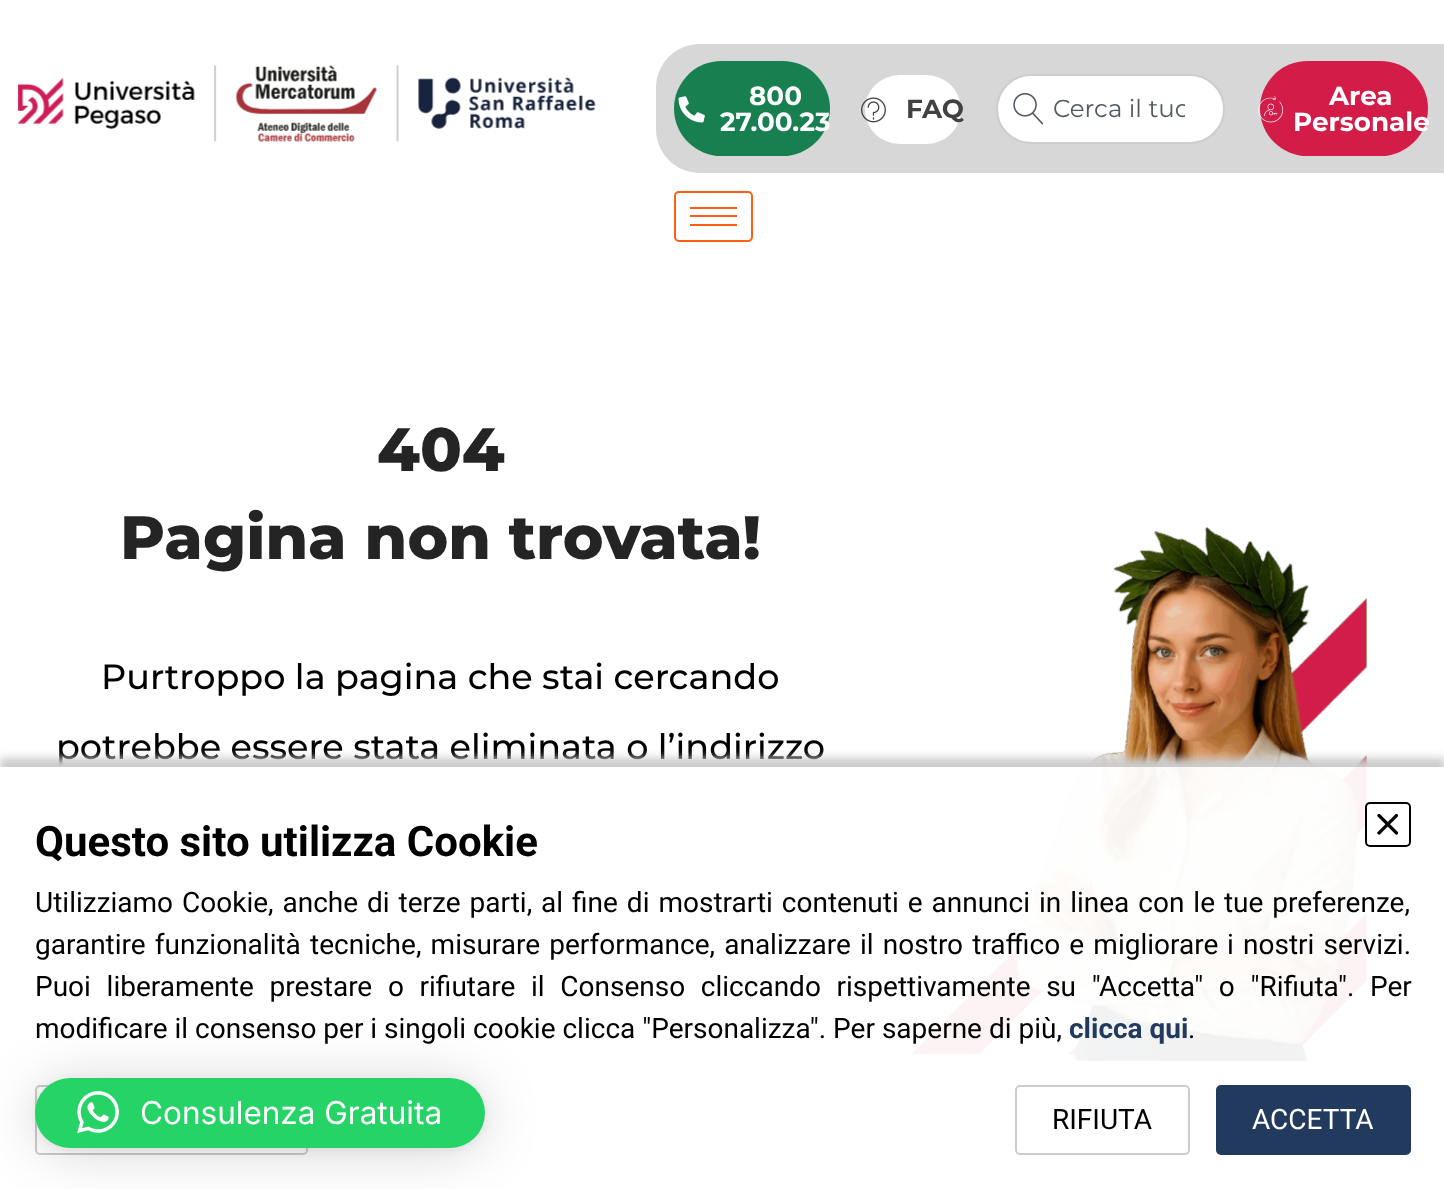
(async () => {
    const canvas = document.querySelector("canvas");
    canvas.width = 1444;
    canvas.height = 1189;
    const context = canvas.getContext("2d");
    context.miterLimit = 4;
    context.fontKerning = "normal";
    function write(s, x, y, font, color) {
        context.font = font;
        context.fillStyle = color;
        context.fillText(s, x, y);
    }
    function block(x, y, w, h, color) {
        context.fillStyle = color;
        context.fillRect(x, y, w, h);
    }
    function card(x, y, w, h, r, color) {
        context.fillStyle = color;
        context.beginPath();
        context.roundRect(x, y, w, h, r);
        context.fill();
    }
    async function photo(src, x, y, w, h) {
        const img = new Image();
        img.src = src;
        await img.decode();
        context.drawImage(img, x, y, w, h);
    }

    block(0, 0, 1444, 1189, "rgb(255, 255, 255)");
    await photo("media/1.png", 18, 64, 578, 78);
    context.fillStyle = "rgb(215, 215, 215)";
    context.beginPath();
    context.moveTo(700, 44);
    context.lineTo(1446, 44);
    context.lineTo(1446, 173);
    context.lineTo(700, 173);
    context.bezierCurveTo(675.5, 173, 656, 153.5, 656, 129);
    context.lineTo(656, 88);
    context.bezierCurveTo(656, 63.5, 675.5, 44, 700, 44);
    context.closePath();
    context.fill();
    card(674, 61, 156, 95, 47.5, "rgb(24, 127, 81)");
    await photo("media/2.png", 678, 96, 27, 27);
    write("800", 749, 105, "bold 26.25px Montserrat", "rgb(255, 255, 255)");
    write("27.00.23", 720, 131, "bold 26.25px Montserrat", "rgb(255, 255, 255)");
    card(865, 75, 96, 69, 34.5, "rgb(255, 255, 255)");
    await photo("media/3.png", 861, 97, 25, 26);
    write("FAQ", 906, 118, "bold 26.25px Montserrat", "rgb(66, 66, 66)");
    context.fillStyle = "rgb(255, 255, 255)";
    context.beginPath();
    context.roundRect(997, 75, 227, 68, 34);
    context.fill();
    context.strokeStyle = "rgb(205, 205, 205)";
    context.lineWidth = 2;
    context.stroke();
    await photo("media/4.png", 1013, 93, 31, 32);
    context.save();
    context.beginPath();
    context.rect(1054, 93, 131, 31);
    context.clip();
    write("Cerca il tuo", 1053, 117, "24.5px Montserrat", "rgb(81, 89, 98)");
    context.restore();
    card(1260, 61, 168, 95, 47.5, "rgb(211, 28, 72)");
    await photo("media/5.png", 1258, 96, 26, 27);
    write("Area", 1329, 105, "bold 26.25px Montserrat", "rgb(255, 255, 255)");
    write("Personale", 1293, 131, "bold 26.25px Montserrat", "rgb(255, 255, 255)");
    context.beginPath();
    context.roundRect(675, 192, 77, 49, 4);
    context.strokeStyle = "rgb(255, 94, 19)";
    context.stroke();
    block(690, 207, 47, 2, "rgb(255, 94, 19)");
    block(690, 215, 47, 2, "rgb(255, 94, 19)");
    block(690, 224, 47, 2, "rgb(255, 94, 19)");
    write("404", 377, 471, "800 61.25px Montserrat", "rgb(36, 36, 36)");
    write("Pagina non trovata!", 120, 559, "800 61.25px Montserrat", "rgb(36, 36, 36)");
    write("Purtroppo la pagina che stai cercando", 101, 689, "500 35px Montserrat", "rgb(0, 0, 0)");
    write("potrebbe essere stata eliminata o l’indirizzo", 56, 759, "500 35px Montserrat", "rgb(0, 0, 0)");
    await photo("media/6.png", 911, 527, 457, 535);
    context.save();
    context.beginPath();
    context.rect(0, 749, 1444, 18);
    context.clip();
    context.fillStyle = "rgb(204, 204, 204)";
    context.filter = "blur(4.5px)";
    context.beginPath();
    context.rect(0, 758, 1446, 423);
    context.fill();
    context.filter = "none";
    context.restore();
    block(911, 767, 457, 295, "rgba(255, 255, 255, 0.95)");
    context.beginPath();
    context.roundRect(1366, 803, 44, 43, 4);
    context.strokeStyle = "rgb(0, 0, 0)";
    context.stroke();
    await photo("media/7.png", 1377, 814, 21, 21);
    write("Questo sito utilizza Cookie", 35, 856, "bold 42px Roboto", "rgb(0, 0, 0)");
    context.wordSpacing = "2px";
    write("Utilizziamo Cookie, anche di terze parti, al fine di mostrarti contenuti e annunci in linea con le tue preferenze,", 35, 912, "28px Roboto", "rgb(0, 0, 0)");
    context.wordSpacing = "2.25px";
    write("garantire funzionalità tecniche, misurare performance, analizzare il nostro traffico e migliorare", 35, 954, "28px Roboto", "rgb(0, 0, 0)");
    write("i nostri servizi.", 1227, 954, "28px Roboto", "rgb(0, 0, 0)");
    context.wordSpacing = "8.75px";
    write("Puoi liberamente prestare o rifiutare il Consenso cliccando rispettivamente su \"Accetta\" o \"Rifiuta\". Per", 35, 996, "28px Roboto", "rgb(0, 0, 0)");
    context.wordSpacing = "0px";
    write("modificare il consenso per i singoli cookie clicca \"Personalizza\". Per saperne di più,", 35, 1038, "28px Roboto", "rgb(0, 0, 0)");
    write("clicca qui", 1069, 1038, "bold 28px Roboto", "rgb(34, 58, 94)");
    write(".", 1188, 1038, "28px Roboto", "rgb(0, 0, 0)");
    context.beginPath();
    context.roundRect(36, 1086, 271, 68, 4);
    context.strokeStyle = "rgb(204, 204, 204)";
    context.stroke();
    context.beginPath();
    context.roundRect(1016, 1086, 173, 68, 4);
    context.stroke();
    write("RIFIUTA", 1052, 1129, "28px Roboto", "rgb(0, 0, 0)");
    context.fillStyle = "rgb(34, 58, 94)";
    context.beginPath();
    context.roundRect(1217, 1086, 193, 68, 4);
    context.fill();
    context.strokeStyle = "rgb(34, 58, 94)";
    context.stroke();
    write("ACCETTA", 1252, 1129, "28px Roboto", "rgb(255, 255, 255)");
    context.fillStyle = "rgba(0, 0, 0, 0.16)";
    context.filter = "blur(28px)";
    context.beginPath();
    context.roundRect(35, 1082, 450, 70, 35);
    context.fill();
    context.filter = "none";
    context.fillStyle = "rgba(0, 0, 0, 0.06)";
    context.filter = "blur(5px)";
    context.beginPath();
    context.roundRect(35, 1080, 450, 70, 35);
    context.fill();
    context.filter = "none";
    card(35, 1078, 450, 70, 35, "rgb(37, 211, 102)");
    await photo("media/8.png", 77, 1091, 42, 43);
    write("Consulenza Gratuita", 140, 1124, "31.5px Inter", "rgb(255, 255, 255)");
})();
